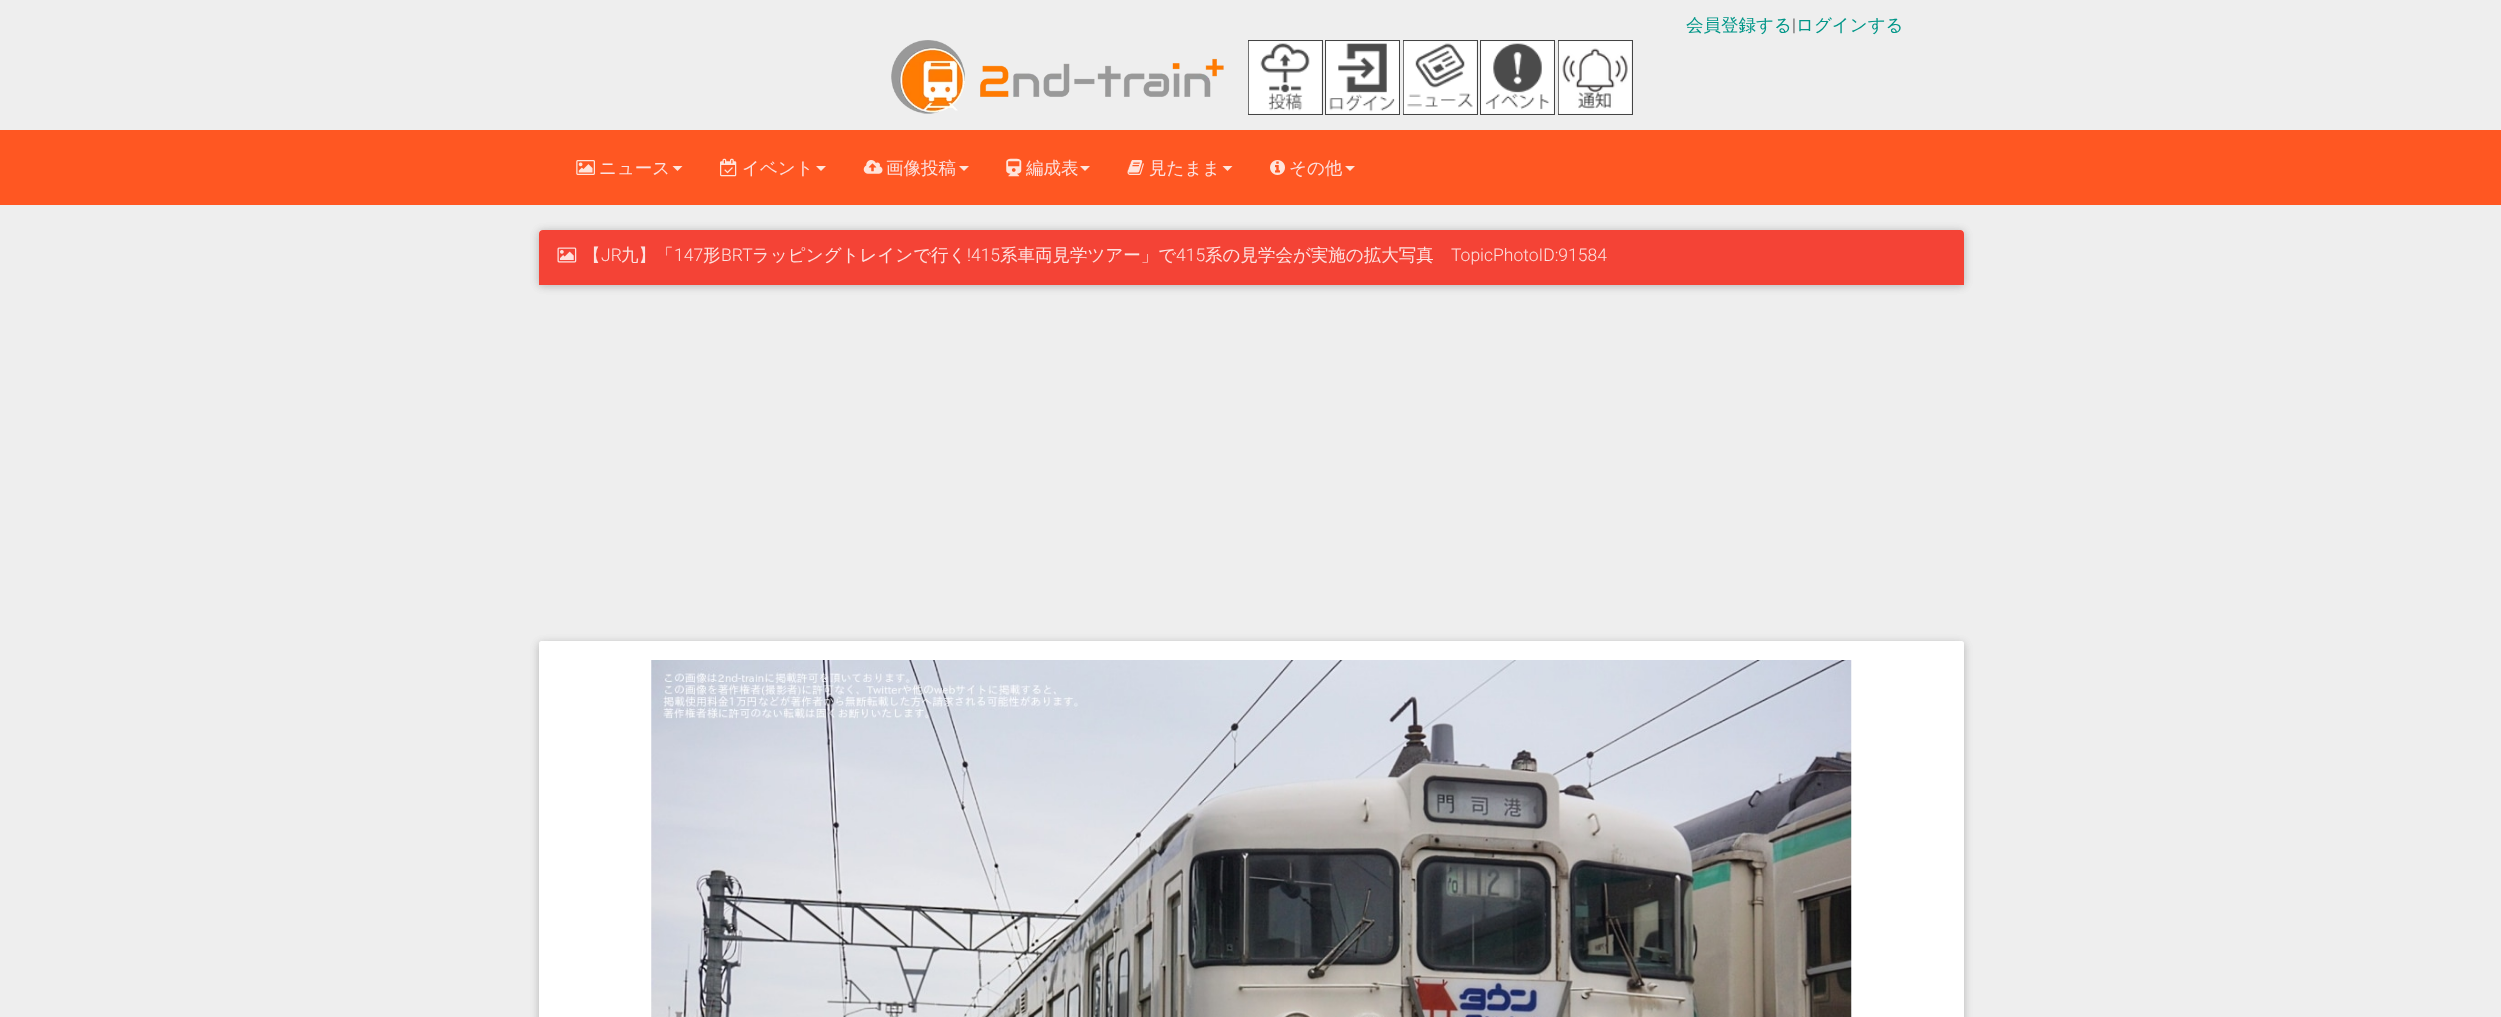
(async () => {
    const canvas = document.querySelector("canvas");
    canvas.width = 2501;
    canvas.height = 1017;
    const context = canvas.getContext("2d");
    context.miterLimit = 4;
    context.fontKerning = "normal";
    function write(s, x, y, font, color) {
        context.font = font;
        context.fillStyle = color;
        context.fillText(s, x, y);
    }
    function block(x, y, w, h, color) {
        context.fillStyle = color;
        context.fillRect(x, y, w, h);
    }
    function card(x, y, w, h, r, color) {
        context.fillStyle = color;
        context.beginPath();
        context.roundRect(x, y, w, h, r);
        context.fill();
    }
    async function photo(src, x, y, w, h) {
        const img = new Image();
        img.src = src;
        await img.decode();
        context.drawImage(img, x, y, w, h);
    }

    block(0, 0, 2501, 1017, "rgb(238, 238, 238)");
    write("会員登録する", 1686, 31, "500 17.5px WenQuanYi Zen Hei", "rgb(0, 150, 136)");
    write("|", 1792, 31, "300 17.5px Roboto", "rgb(51, 51, 51)");
    write("ログインする", 1796, 31, "500 17.5px WenQuanYi Zen Hei", "rgb(0, 150, 136)");
    await photo("media/1.png", 891, 40, 333, 74);
    context.strokeStyle = "rgb(68, 68, 68)";
    context.strokeRect(1248.5, 40.5, 74, 74);
    await photo("media/2.png", 1248, 41, 74, 73);
    context.strokeRect(1325.5, 40.5, 74, 74);
    await photo("media/3.png", 1326, 41, 73, 73);
    context.strokeRect(1403.5, 40.5, 74, 74);
    await photo("media/4.png", 1403, 41, 74, 73);
    context.strokeRect(1480.5, 40.5, 74, 74);
    await photo("media/5.png", 1481, 41, 73, 73);
    context.strokeRect(1558.5, 40.5, 74, 74);
    await photo("media/6.png", 1558, 41, 74, 73);
    block(0, 130, 2501, 75, "rgb(255, 87, 34)");
    await photo("media/7.png", 576, 160, 19, 15);
    write("ニュース", 599, 174, "500 17.5px WenQuanYi Zen Hei", "rgb(253, 225, 223)");
    context.fillStyle = "rgb(255, 229, 220)";
    context.beginPath();
    context.moveTo(672.5, 166);
    context.lineTo(682.5, 166);
    context.lineTo(677.5, 171);
    context.closePath();
    context.fill();
    await photo("media/8.png", 720, 158, 17, 19);
    write("イベント", 742, 174, "500 17.5px WenQuanYi Zen Hei", "rgb(253, 225, 223)");
    context.fillStyle = "rgb(255, 229, 220)";
    context.beginPath();
    context.moveTo(816, 166);
    context.lineTo(826, 166);
    context.lineTo(821, 171);
    context.closePath();
    context.fill();
    await photo("media/9.png", 863, 160, 20, 14);
    write("画像投稿", 886, 174, "500 17.5px WenQuanYi Zen Hei", "rgb(253, 225, 223)");
    context.fillStyle = "rgb(255, 229, 220)";
    context.beginPath();
    context.moveTo(959, 166);
    context.lineTo(969, 166);
    context.lineTo(964, 171);
    context.closePath();
    context.fill();
    await photo("media/10.png", 1006, 158, 16, 19);
    write("編成表", 1026, 174, "500 17.5px WenQuanYi Zen Hei", "rgb(253, 225, 223)");
    context.fillStyle = "rgb(255, 229, 220)";
    context.beginPath();
    context.moveTo(1080, 166);
    context.lineTo(1090, 166);
    context.lineTo(1085, 171);
    context.closePath();
    context.fill();
    await photo("media/11.png", 1127, 160, 17, 15);
    write("見たまま", 1149, 174, "500 17.5px WenQuanYi Zen Hei", "rgb(253, 225, 223)");
    context.fillStyle = "rgb(255, 229, 220)";
    context.beginPath();
    context.moveTo(1222.5, 166);
    context.lineTo(1232.5, 166);
    context.lineTo(1227.5, 171);
    context.closePath();
    context.fill();
    await photo("media/12.png", 1270, 160, 15, 15);
    write("その他", 1289, 174, "500 17.5px WenQuanYi Zen Hei", "rgb(253, 225, 223)");
    context.fillStyle = "rgb(255, 229, 220)";
    context.beginPath();
    context.moveTo(1345, 166);
    context.lineTo(1355, 166);
    context.lineTo(1350, 171);
    context.closePath();
    context.fill();
    context.fillStyle = "rgba(0, 0, 0, 0.12)";
    context.filter = "blur(4px)";
    context.beginPath();
    context.roundRect(539, 231, 1425, 55, 2.5);
    context.fill();
    context.filter = "none";
    context.filter = "blur(4px)";
    context.beginPath();
    context.roundRect(539, 231, 1425, 55, 2.5);
    context.fill();
    context.filter = "none";
    card(539, 230, 1425, 55, 2.5, "rgb(255, 255, 255)");
    context.fillStyle = "rgb(244, 67, 54)";
    context.beginPath();
    context.roundRect(539, 230, 1425, 55, [4, 4, 0, 0]);
    context.fill();
    await photo("media/13.png", 557, 247, 20, 16);
    write("【", 583, 261, "500 17.5px WenQuanYi Zen Hei", "rgb(253, 225, 223)");
    write("JR", 601, 261, "300 17.5px Roboto", "rgb(253, 225, 223)");
    write("九】「", 621, 261, "500 17.5px WenQuanYi Zen Hei", "rgb(253, 225, 223)");
    write("147", 674, 261, "300 17.5px Roboto", "rgb(253, 225, 223)");
    write("形", 703, 261, "500 17.5px WenQuanYi Zen Hei", "rgb(253, 225, 223)");
    write("BRT", 721, 261, "300 17.5px Roboto", "rgb(253, 225, 223)");
    write("ラッピングトレインで行く", 752, 261, "500 17.5px WenQuanYi Zen Hei", "rgb(253, 225, 223)");
    write("!415", 967, 261, "300 17.5px Roboto", "rgb(253, 225, 223)");
    write("系車両見学ツアー」で", 1000, 261, "500 17.5px WenQuanYi Zen Hei", "rgb(253, 225, 223)");
    write("415", 1176, 261, "300 17.5px Roboto", "rgb(253, 225, 223)");
    write("系の見学会が実施の拡大写真", 1205, 261, "500 17.5px WenQuanYi Zen Hei", "rgb(253, 225, 223)");
    write("TopicPhotoID:91584", 1451, 261, "300 17.5px Roboto", "rgb(253, 225, 223)");
    context.fillStyle = "rgba(0, 0, 0, 0.12)";
    context.filter = "blur(4px)";
    context.beginPath();
    context.roundRect(539, 643, 1425, 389, 2.5);
    context.fill();
    context.filter = "none";
    context.filter = "blur(4px)";
    context.beginPath();
    context.roundRect(539, 643, 1425, 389, 2.5);
    context.fill();
    context.filter = "none";
    card(539, 641, 1425, 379, 2.5, "rgb(255, 255, 255)");
    await photo("media/14.png", 651, 660, 1201, 357);
})();
